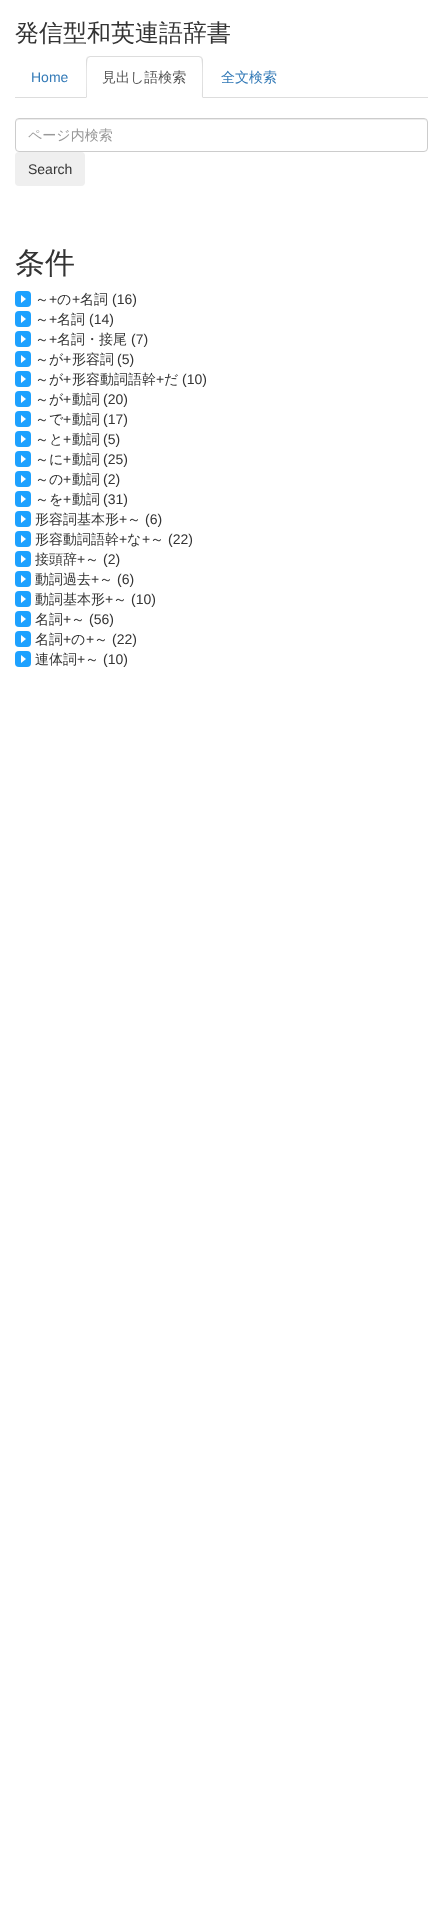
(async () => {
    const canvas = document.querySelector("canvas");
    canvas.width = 443;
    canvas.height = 1922;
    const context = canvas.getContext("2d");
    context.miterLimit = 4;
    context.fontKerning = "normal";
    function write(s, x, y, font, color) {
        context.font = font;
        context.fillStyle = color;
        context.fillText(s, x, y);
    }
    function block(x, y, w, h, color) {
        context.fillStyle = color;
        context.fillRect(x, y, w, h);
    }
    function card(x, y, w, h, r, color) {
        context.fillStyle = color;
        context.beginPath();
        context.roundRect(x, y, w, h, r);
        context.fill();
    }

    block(0, 0, 443, 1922, "rgb(255, 255, 255)");
    write("発信型和英連語辞書", 15, 41, "500 24px WenQuanYi Zen Hei", "rgb(51, 51, 51)");
    block(15, 97, 413, 1, "rgb(221, 221, 221)");
    write("Home", 31, 82, "14px Liberation Sans", "rgb(51, 122, 183)");
    context.fillStyle = "rgb(255, 255, 255)";
    context.beginPath();
    context.roundRect(86, 56, 117, 42, [4, 4, 0, 0]);
    context.fill();
    context.fillStyle = "rgb(221, 221, 221)";
    context.beginPath();
    context.moveTo(90, 56);
    context.lineTo(87, 57);
    context.lineTo(88, 58);
    context.lineTo(90, 57);
    context.lineTo(199, 57);
    context.lineTo(201, 58);
    context.lineTo(202, 57);
    context.lineTo(199, 56);
    context.closePath();
    context.fill();
    context.beginPath();
    context.moveTo(203, 98);
    context.lineTo(203, 60);
    context.bezierCurveTo(203, 59, 202, 58, 202, 57);
    context.lineTo(201, 58);
    context.bezierCurveTo(203, 60, 202, 92, 202, 97);
    context.closePath();
    context.fill();
    context.beginPath();
    context.moveTo(86, 98);
    context.lineTo(87, 97);
    context.bezierCurveTo(87, 92, 86, 60, 88, 58);
    context.lineTo(87, 57);
    context.lineTo(86, 60);
    context.closePath();
    context.fill();
    write("見出し語検索", 102, 82, "500 14px WenQuanYi Zen Hei", "rgb(85, 85, 85)");
    write("全文検索", 221, 82, "500 14px WenQuanYi Zen Hei", "rgb(51, 122, 183)");
    context.fillStyle = "rgb(236, 236, 236)";
    context.beginPath();
    context.moveTo(19, 120);
    context.lineTo(424, 120);
    context.bezierCurveTo(426, 120, 427, 121, 427, 123);
    context.bezierCurveTo(427, 121, 426, 119, 424, 119);
    context.lineTo(19, 119);
    context.bezierCurveTo(17, 119, 16, 121, 16, 123);
    context.bezierCurveTo(16, 121, 17, 120, 19, 120);
    context.closePath();
    context.fill();
    context.beginPath();
    context.roundRect(15.5, 118.5, 412, 33, 3.5);
    context.strokeStyle = "rgb(204, 204, 204)";
    context.stroke();
    write("ページ内検索", 28, 140, "500 14px WenQuanYi Zen Hei", "rgb(153, 153, 153)");
    card(15, 152, 70, 34, 4, "rgb(239, 239, 239)");
    write("Search", 28, 174, "14px Liberation Sans", "rgb(51, 51, 51)");
    write("条件", 15, 273, "500 30px WenQuanYi Zen Hei", "rgb(51, 51, 51)");
    card(15, 291, 16, 16, 4, "rgb(29, 161, 255)");
    write("の", 57, 304, "500 14px WenQuanYi Zen Hei", "rgb(51, 51, 51)");
    write("名詞", 80, 304, "500 14px WenQuanYi Zen Hei", "rgb(51, 51, 51)");
    write("(16)", 112, 304, "14px Liberation Sans", "rgb(51, 51, 51)");
    context.fillStyle = "rgb(255, 255, 255)";
    context.beginPath();
    context.moveTo(21, 303);
    context.lineTo(21, 295);
    context.lineTo(26, 299);
    context.closePath();
    context.fill();
    write("～", 35, 304, "500 14px WenQuanYi Zen Hei", "rgb(51, 51, 51)");
    write("+", 49, 304, "14px Liberation Sans", "rgb(51, 51, 51)");
    write("+", 72, 304, "14px Liberation Sans", "rgb(51, 51, 51)");
    card(15, 311, 16, 16, 4, "rgb(29, 161, 255)");
    write("名詞", 57, 324, "500 14px WenQuanYi Zen Hei", "rgb(51, 51, 51)");
    write("(14)", 89, 324, "14px Liberation Sans", "rgb(51, 51, 51)");
    context.fillStyle = "rgb(255, 255, 255)";
    context.beginPath();
    context.moveTo(21, 323);
    context.lineTo(21, 315);
    context.lineTo(26, 319);
    context.closePath();
    context.fill();
    write("～", 35, 324, "500 14px WenQuanYi Zen Hei", "rgb(51, 51, 51)");
    write("+", 49, 324, "14px Liberation Sans", "rgb(51, 51, 51)");
    card(15, 331, 16, 16, 4, "rgb(29, 161, 255)");
    write("名詞・接尾", 57, 344, "500 14px WenQuanYi Zen Hei", "rgb(51, 51, 51)");
    write("(7)", 131, 344, "14px Liberation Sans", "rgb(51, 51, 51)");
    context.fillStyle = "rgb(255, 255, 255)";
    context.beginPath();
    context.moveTo(21, 343);
    context.lineTo(21, 335);
    context.lineTo(26, 339);
    context.closePath();
    context.fill();
    write("～", 35, 344, "500 14px WenQuanYi Zen Hei", "rgb(51, 51, 51)");
    write("+", 49, 344, "14px Liberation Sans", "rgb(51, 51, 51)");
    card(15, 351, 16, 16, 4, "rgb(29, 161, 255)");
    write("～が", 35, 364, "500 14px WenQuanYi Zen Hei", "rgb(51, 51, 51)");
    write("形容詞", 72, 364, "500 14px WenQuanYi Zen Hei", "rgb(51, 51, 51)");
    write("(5)", 117, 364, "14px Liberation Sans", "rgb(51, 51, 51)");
    context.fillStyle = "rgb(255, 255, 255)";
    context.beginPath();
    context.moveTo(21, 363);
    context.lineTo(21, 355);
    context.lineTo(26, 359);
    context.closePath();
    context.fill();
    write("+", 63, 364, "14px Liberation Sans", "rgb(51, 51, 51)");
    card(15, 371, 16, 16, 4, "rgb(29, 161, 255)");
    write("～が", 35, 384, "500 14px WenQuanYi Zen Hei", "rgb(51, 51, 51)");
    write("形容動詞語幹", 72, 384, "500 14px WenQuanYi Zen Hei", "rgb(51, 51, 51)");
    write("だ", 164, 384, "500 14px WenQuanYi Zen Hei", "rgb(51, 51, 51)");
    write("(10)", 182, 384, "14px Liberation Sans", "rgb(51, 51, 51)");
    context.fillStyle = "rgb(255, 255, 255)";
    context.beginPath();
    context.moveTo(21, 383);
    context.lineTo(21, 375);
    context.lineTo(26, 379);
    context.closePath();
    context.fill();
    write("+", 63, 384, "14px Liberation Sans", "rgb(51, 51, 51)");
    write("+", 156, 384, "14px Liberation Sans", "rgb(51, 51, 51)");
    card(15, 391, 16, 16, 4, "rgb(29, 161, 255)");
    write("～が", 35, 404, "500 14px WenQuanYi Zen Hei", "rgb(51, 51, 51)");
    write("動詞", 72, 404, "500 14px WenQuanYi Zen Hei", "rgb(51, 51, 51)");
    write("(20)", 103, 404, "14px Liberation Sans", "rgb(51, 51, 51)");
    context.fillStyle = "rgb(255, 255, 255)";
    context.beginPath();
    context.moveTo(21, 403);
    context.lineTo(21, 395);
    context.lineTo(26, 399);
    context.closePath();
    context.fill();
    write("+", 63, 404, "14px Liberation Sans", "rgb(51, 51, 51)");
    card(15, 411, 16, 16, 4, "rgb(29, 161, 255)");
    write("～で", 35, 424, "500 14px WenQuanYi Zen Hei", "rgb(51, 51, 51)");
    write("動詞", 72, 424, "500 14px WenQuanYi Zen Hei", "rgb(51, 51, 51)");
    write("(17)", 103, 424, "14px Liberation Sans", "rgb(51, 51, 51)");
    context.fillStyle = "rgb(255, 255, 255)";
    context.beginPath();
    context.moveTo(21, 423);
    context.lineTo(21, 415);
    context.lineTo(26, 419);
    context.closePath();
    context.fill();
    write("+", 63, 424, "14px Liberation Sans", "rgb(51, 51, 51)");
    card(15, 431, 16, 16, 4, "rgb(29, 161, 255)");
    write("～と", 35, 444, "500 14px WenQuanYi Zen Hei", "rgb(51, 51, 51)");
    write("動詞", 72, 444, "500 14px WenQuanYi Zen Hei", "rgb(51, 51, 51)");
    write("(5)", 103, 444, "14px Liberation Sans", "rgb(51, 51, 51)");
    context.fillStyle = "rgb(255, 255, 255)";
    context.beginPath();
    context.moveTo(21, 443);
    context.lineTo(21, 435);
    context.lineTo(26, 439);
    context.closePath();
    context.fill();
    write("+", 63, 444, "14px Liberation Sans", "rgb(51, 51, 51)");
    card(15, 451, 16, 16, 4, "rgb(29, 161, 255)");
    write("～に", 35, 464, "500 14px WenQuanYi Zen Hei", "rgb(51, 51, 51)");
    write("動詞", 72, 464, "500 14px WenQuanYi Zen Hei", "rgb(51, 51, 51)");
    write("(25)", 103, 464, "14px Liberation Sans", "rgb(51, 51, 51)");
    context.fillStyle = "rgb(255, 255, 255)";
    context.beginPath();
    context.moveTo(21, 463);
    context.lineTo(21, 455);
    context.lineTo(26, 459);
    context.closePath();
    context.fill();
    write("+", 63, 464, "14px Liberation Sans", "rgb(51, 51, 51)");
    card(15, 471, 16, 16, 4, "rgb(29, 161, 255)");
    write("～の", 35, 484, "500 14px WenQuanYi Zen Hei", "rgb(51, 51, 51)");
    write("動詞", 72, 484, "500 14px WenQuanYi Zen Hei", "rgb(51, 51, 51)");
    write("(2)", 103, 484, "14px Liberation Sans", "rgb(51, 51, 51)");
    context.fillStyle = "rgb(255, 255, 255)";
    context.beginPath();
    context.moveTo(21, 483);
    context.lineTo(21, 475);
    context.lineTo(26, 479);
    context.closePath();
    context.fill();
    write("+", 63, 484, "14px Liberation Sans", "rgb(51, 51, 51)");
    card(15, 491, 16, 16, 4, "rgb(29, 161, 255)");
    write("～を", 35, 504, "500 14px WenQuanYi Zen Hei", "rgb(51, 51, 51)");
    write("動詞", 72, 504, "500 14px WenQuanYi Zen Hei", "rgb(51, 51, 51)");
    write("(31)", 103, 504, "14px Liberation Sans", "rgb(51, 51, 51)");
    context.fillStyle = "rgb(255, 255, 255)";
    context.beginPath();
    context.moveTo(21, 503);
    context.lineTo(21, 495);
    context.lineTo(26, 499);
    context.closePath();
    context.fill();
    write("+", 63, 504, "14px Liberation Sans", "rgb(51, 51, 51)");
    card(15, 511, 16, 16, 4, "rgb(29, 161, 255)");
    write("形容詞基本形", 35, 524, "500 14px WenQuanYi Zen Hei", "rgb(51, 51, 51)");
    write("(6)", 145, 524, "14px Liberation Sans", "rgb(51, 51, 51)");
    context.fillStyle = "rgb(255, 255, 255)";
    context.beginPath();
    context.moveTo(21, 523);
    context.lineTo(21, 515);
    context.lineTo(26, 519);
    context.closePath();
    context.fill();
    write("+", 119, 524, "14px Liberation Sans", "rgb(51, 51, 51)");
    write("～", 127, 524, "500 14px WenQuanYi Zen Hei", "rgb(51, 51, 51)");
    card(15, 531, 16, 16, 4, "rgb(29, 161, 255)");
    write("形容動詞語幹", 35, 544, "500 14px WenQuanYi Zen Hei", "rgb(51, 51, 51)");
    write("な", 127, 544, "500 14px WenQuanYi Zen Hei", "rgb(51, 51, 51)");
    write("(22)", 168, 544, "14px Liberation Sans", "rgb(51, 51, 51)");
    context.fillStyle = "rgb(255, 255, 255)";
    context.beginPath();
    context.moveTo(21, 543);
    context.lineTo(21, 535);
    context.lineTo(26, 539);
    context.closePath();
    context.fill();
    write("+", 119, 544, "14px Liberation Sans", "rgb(51, 51, 51)");
    write("+", 142, 544, "14px Liberation Sans", "rgb(51, 51, 51)");
    write("～", 150, 544, "500 14px WenQuanYi Zen Hei", "rgb(51, 51, 51)");
    card(15, 551, 16, 16, 4, "rgb(29, 161, 255)");
    write("接頭辞", 35, 564, "500 14px WenQuanYi Zen Hei", "rgb(51, 51, 51)");
    write("(2)", 103, 564, "14px Liberation Sans", "rgb(51, 51, 51)");
    context.fillStyle = "rgb(255, 255, 255)";
    context.beginPath();
    context.moveTo(21, 563);
    context.lineTo(21, 555);
    context.lineTo(26, 559);
    context.closePath();
    context.fill();
    write("+", 77, 564, "14px Liberation Sans", "rgb(51, 51, 51)");
    write("～", 85, 564, "500 14px WenQuanYi Zen Hei", "rgb(51, 51, 51)");
    card(15, 571, 16, 16, 4, "rgb(29, 161, 255)");
    write("動詞過去", 35, 584, "500 14px WenQuanYi Zen Hei", "rgb(51, 51, 51)");
    write("(6)", 117, 584, "14px Liberation Sans", "rgb(51, 51, 51)");
    context.fillStyle = "rgb(255, 255, 255)";
    context.beginPath();
    context.moveTo(21, 583);
    context.lineTo(21, 575);
    context.lineTo(26, 579);
    context.closePath();
    context.fill();
    write("+", 91, 584, "14px Liberation Sans", "rgb(51, 51, 51)");
    write("～", 99, 584, "500 14px WenQuanYi Zen Hei", "rgb(51, 51, 51)");
    card(15, 591, 16, 16, 4, "rgb(29, 161, 255)");
    write("動詞基本形", 35, 604, "500 14px WenQuanYi Zen Hei", "rgb(51, 51, 51)");
    write("(10)", 131, 604, "14px Liberation Sans", "rgb(51, 51, 51)");
    context.fillStyle = "rgb(255, 255, 255)";
    context.beginPath();
    context.moveTo(21, 603);
    context.lineTo(21, 595);
    context.lineTo(26, 599);
    context.closePath();
    context.fill();
    write("+", 105, 604, "14px Liberation Sans", "rgb(51, 51, 51)");
    write("～", 113, 604, "500 14px WenQuanYi Zen Hei", "rgb(51, 51, 51)");
    card(15, 611, 16, 16, 4, "rgb(29, 161, 255)");
    write("名詞", 35, 624, "500 14px WenQuanYi Zen Hei", "rgb(51, 51, 51)");
    write("(56)", 89, 624, "14px Liberation Sans", "rgb(51, 51, 51)");
    context.fillStyle = "rgb(255, 255, 255)";
    context.beginPath();
    context.moveTo(21, 623);
    context.lineTo(21, 615);
    context.lineTo(26, 619);
    context.closePath();
    context.fill();
    write("+", 63, 624, "14px Liberation Sans", "rgb(51, 51, 51)");
    write("～", 71, 624, "500 14px WenQuanYi Zen Hei", "rgb(51, 51, 51)");
    card(15, 631, 16, 16, 4, "rgb(29, 161, 255)");
    write("名詞", 35, 644, "500 14px WenQuanYi Zen Hei", "rgb(51, 51, 51)");
    write("の", 71, 644, "500 14px WenQuanYi Zen Hei", "rgb(51, 51, 51)");
    write("(22)", 112, 644, "14px Liberation Sans", "rgb(51, 51, 51)");
    context.fillStyle = "rgb(255, 255, 255)";
    context.beginPath();
    context.moveTo(21, 643);
    context.lineTo(21, 635);
    context.lineTo(26, 639);
    context.closePath();
    context.fill();
    write("+", 63, 644, "14px Liberation Sans", "rgb(51, 51, 51)");
    write("+", 86, 644, "14px Liberation Sans", "rgb(51, 51, 51)");
    write("～", 94, 644, "500 14px WenQuanYi Zen Hei", "rgb(51, 51, 51)");
    card(15, 651, 16, 16, 4, "rgb(29, 161, 255)");
    write("連体詞", 35, 664, "500 14px WenQuanYi Zen Hei", "rgb(51, 51, 51)");
    write("(10)", 103, 664, "14px Liberation Sans", "rgb(51, 51, 51)");
    context.fillStyle = "rgb(255, 255, 255)";
    context.beginPath();
    context.moveTo(21, 663);
    context.lineTo(21, 655);
    context.lineTo(26, 659);
    context.closePath();
    context.fill();
    write("+", 77, 664, "14px Liberation Sans", "rgb(51, 51, 51)");
    write("～", 85, 664, "500 14px WenQuanYi Zen Hei", "rgb(51, 51, 51)");
})();
